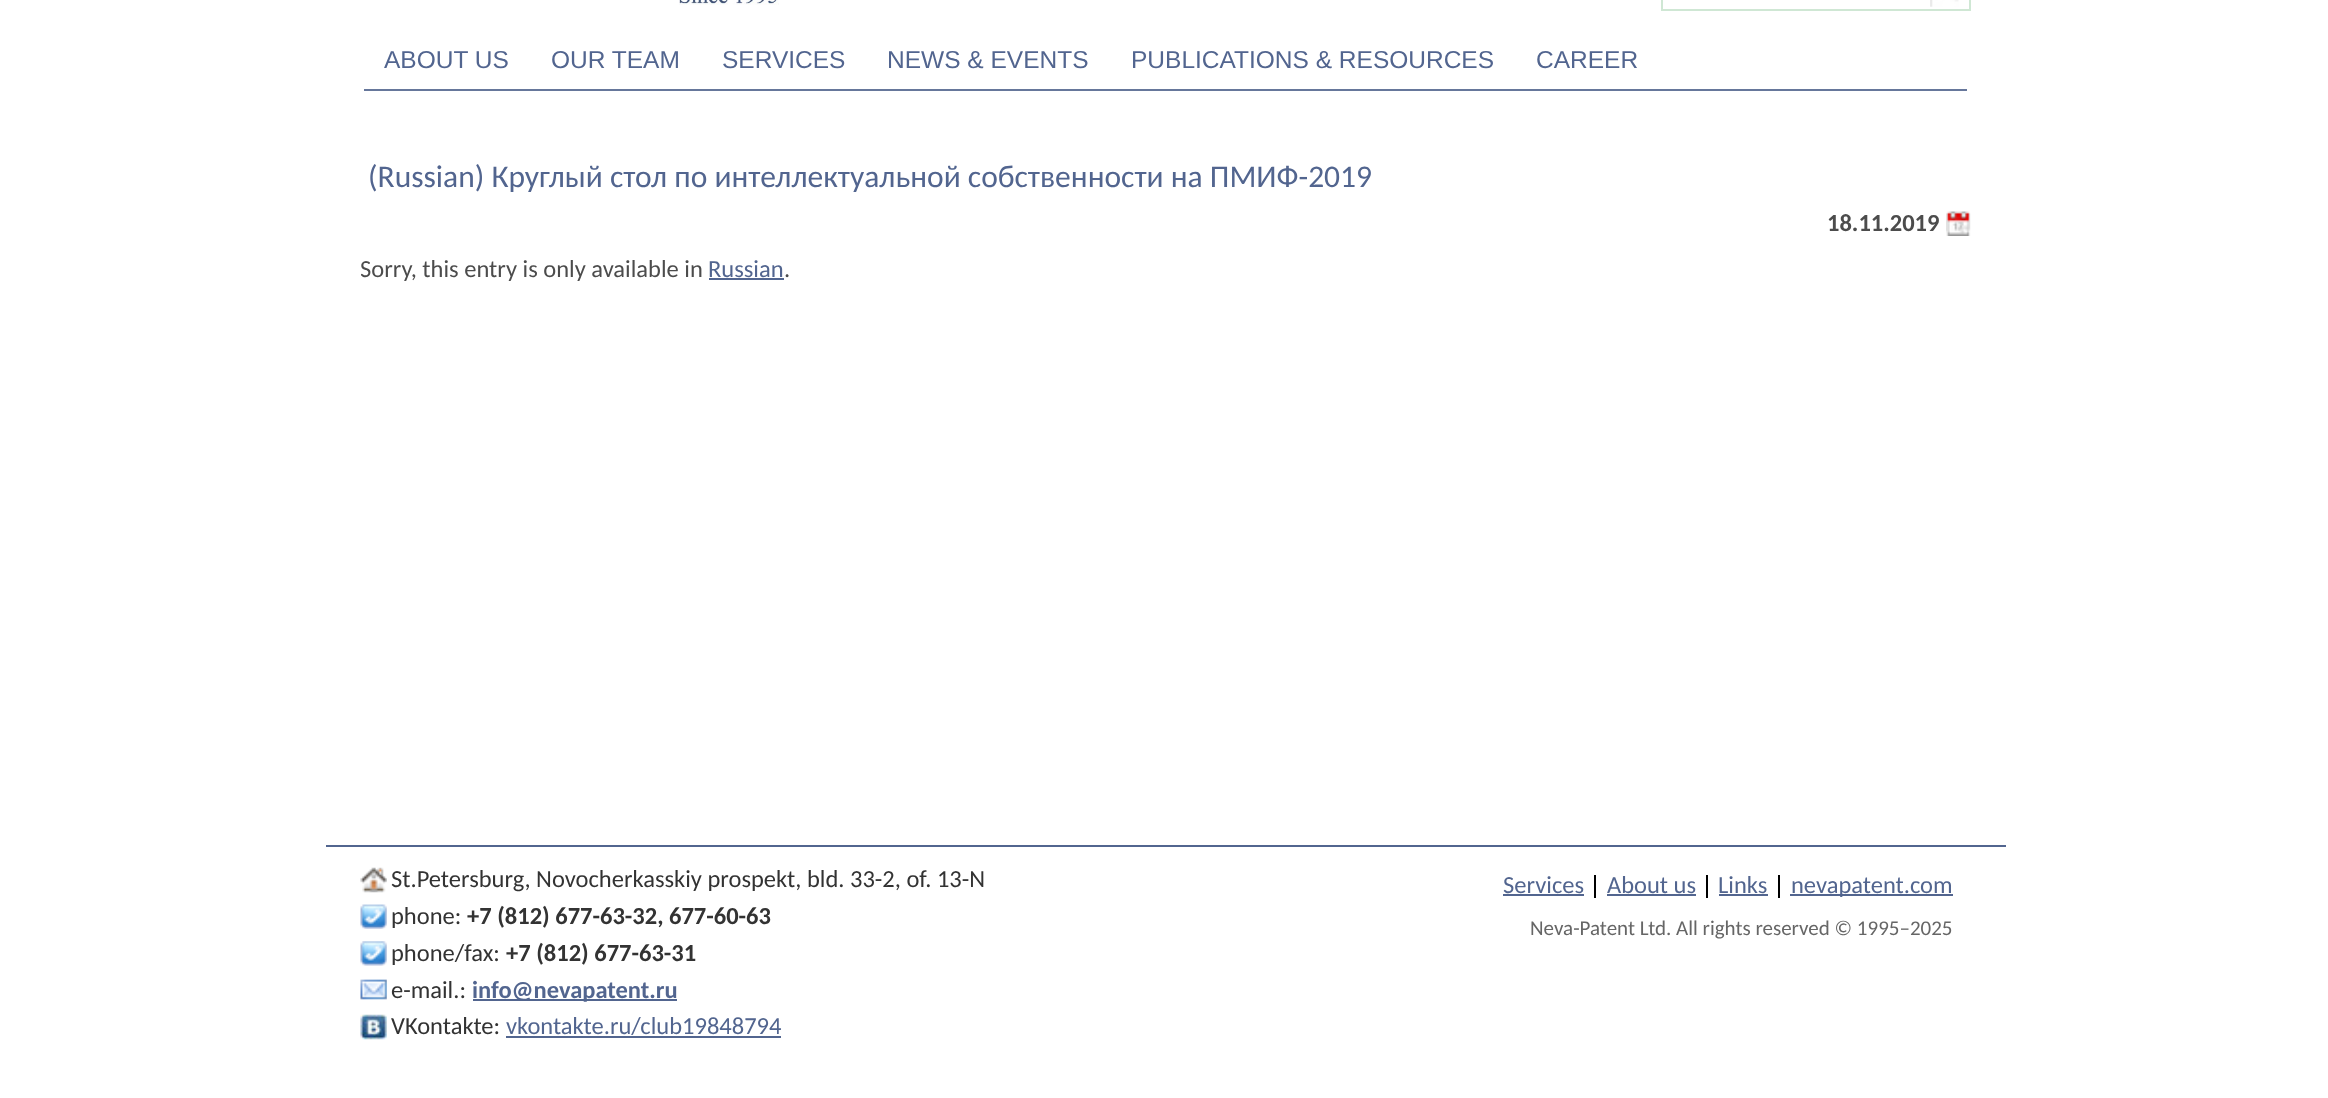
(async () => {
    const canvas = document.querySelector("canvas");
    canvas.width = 2328;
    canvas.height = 1098;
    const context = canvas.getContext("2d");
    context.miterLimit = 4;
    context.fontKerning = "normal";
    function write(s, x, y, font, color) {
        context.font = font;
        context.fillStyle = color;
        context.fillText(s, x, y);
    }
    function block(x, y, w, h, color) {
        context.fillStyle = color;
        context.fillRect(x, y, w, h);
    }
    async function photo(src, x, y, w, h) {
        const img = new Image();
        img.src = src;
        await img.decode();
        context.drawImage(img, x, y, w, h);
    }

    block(0, 0, 2328, 1098, "rgb(255, 255, 255)");
    await photo("media/1.png", 679, 0, 100, 5);
    context.strokeStyle = "rgb(207, 231, 212)";
    context.lineWidth = 2;
    context.strokeRect(1662, -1, 308, 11);
    await photo("media/2.png", 1930, 0, 29, 7);
    block(364, 89, 1603, 2, "rgb(102, 119, 155)");
    write("ABOUT US", 384, 68, "24.5px Liberation Sans", "rgb(82, 101, 143)");
    write("OUR TEAM", 551, 68, "24.5px Liberation Sans", "rgb(82, 101, 143)");
    write("SERVICES", 722, 68, "24.5px Liberation Sans", "rgb(82, 101, 143)");
    write("NEWS & EVENTS", 887, 68, "24.5px Liberation Sans", "rgb(82, 101, 143)");
    write("PUBLICATIONS & RESOURCES", 1131, 68, "24.5px Liberation Sans", "rgb(82, 101, 143)");
    write("CAREER", 1536, 68, "24.5px Liberation Sans", "rgb(82, 101, 143)");
    write("(Russian) Круглый стол по интеллектуальной собственности на ПМИФ-2019", 368, 187, "31.5px Carlito", "rgb(82, 101, 143)");
    await photo("media/3.png", 1946, 211, 25, 25);
    write("18.11.2019", 1827, 231, "bold 24.5px Carlito", "rgb(76, 76, 76)");
    context.save();
    context.beginPath();
    context.rect(361, 147, 1610, 145);
    context.clip();
    write("Sorry, this entry is only available in", 360, 277, "24.5px Carlito", "rgb(76, 76, 76)");
    context.restore();
    write("Russian", 708, 277, "24.5px Carlito", "rgb(82, 101, 143)");
    block(709, 278, 75, 2, "rgb(82, 101, 143)");
    write(".", 784, 277, "24.5px Carlito", "rgb(76, 76, 76)");
    block(326, 845, 1680, 2, "rgb(82, 101, 143)");
    await photo("media/4.png", 360, 867, 27, 26);
    write("St.Petersburg, Novocherkasskiy prospekt, bld. 33-2, of. 13-N", 391, 887, "24.5px Carlito", "rgb(51, 51, 51)");
    await photo("media/5.png", 360, 904, 27, 25);
    write("phone:", 391, 924, "24.5px Carlito", "rgb(51, 51, 51)");
    write("+7 (812) 677-63-32, 677-60-63", 467, 924, "bold 24.5px Carlito", "rgb(51, 51, 51)");
    await photo("media/6.png", 360, 941, 27, 25);
    write("phone/fax:", 391, 961, "24.5px Carlito", "rgb(51, 51, 51)");
    write("+7 (812) 677-63-31", 506, 961, "bold 24.5px Carlito", "rgb(51, 51, 51)");
    await photo("media/7.png", 360, 979, 27, 21);
    write("e-mail.:", 391, 998, "24.5px Carlito", "rgb(51, 51, 51)");
    block(473, 999, 204, 2, "rgb(82, 101, 143)");
    write("info@nevapatent.ru", 472, 998, "bold 24.5px Carlito", "rgb(82, 101, 143)");
    await photo("media/8.png", 360, 1014, 27, 26);
    write("VKontakte:", 391, 1034, "24.5px Carlito", "rgb(51, 51, 51)");
    write("vkontakte.ru/club19848794", 506, 1034, "24.5px Carlito", "rgb(82, 101, 143)");
    block(506, 1036, 275, 2, "rgb(82, 101, 143)");
    block(1594, 875, 2, 23, "rgb(0, 0, 0)");
    write("Services", 1503, 893, "24.5px Carlito", "rgb(82, 101, 143)");
    block(1503, 894, 81, 2, "rgb(82, 101, 143)");
    block(1706, 875, 2, 23, "rgb(0, 0, 0)");
    write("About us", 1607, 893, "24.5px Carlito", "rgb(82, 101, 143)");
    block(1607, 894, 89, 2, "rgb(82, 101, 143)");
    block(1778, 875, 2, 23, "rgb(0, 0, 0)");
    write("Links", 1718, 893, "24.5px Carlito", "rgb(82, 101, 143)");
    block(1719, 894, 49, 2, "rgb(82, 101, 143)");
    block(1790, 894, 163, 2, "rgb(82, 101, 143)");
    write("nevapatent.com", 1791, 893, "24.5px Carlito", "rgb(82, 101, 143)");
    write("Neva-Patent Ltd. All rights reserved © 1995–2025", 1530, 935, "21px Carlito", "rgb(102, 102, 102)");
})();
